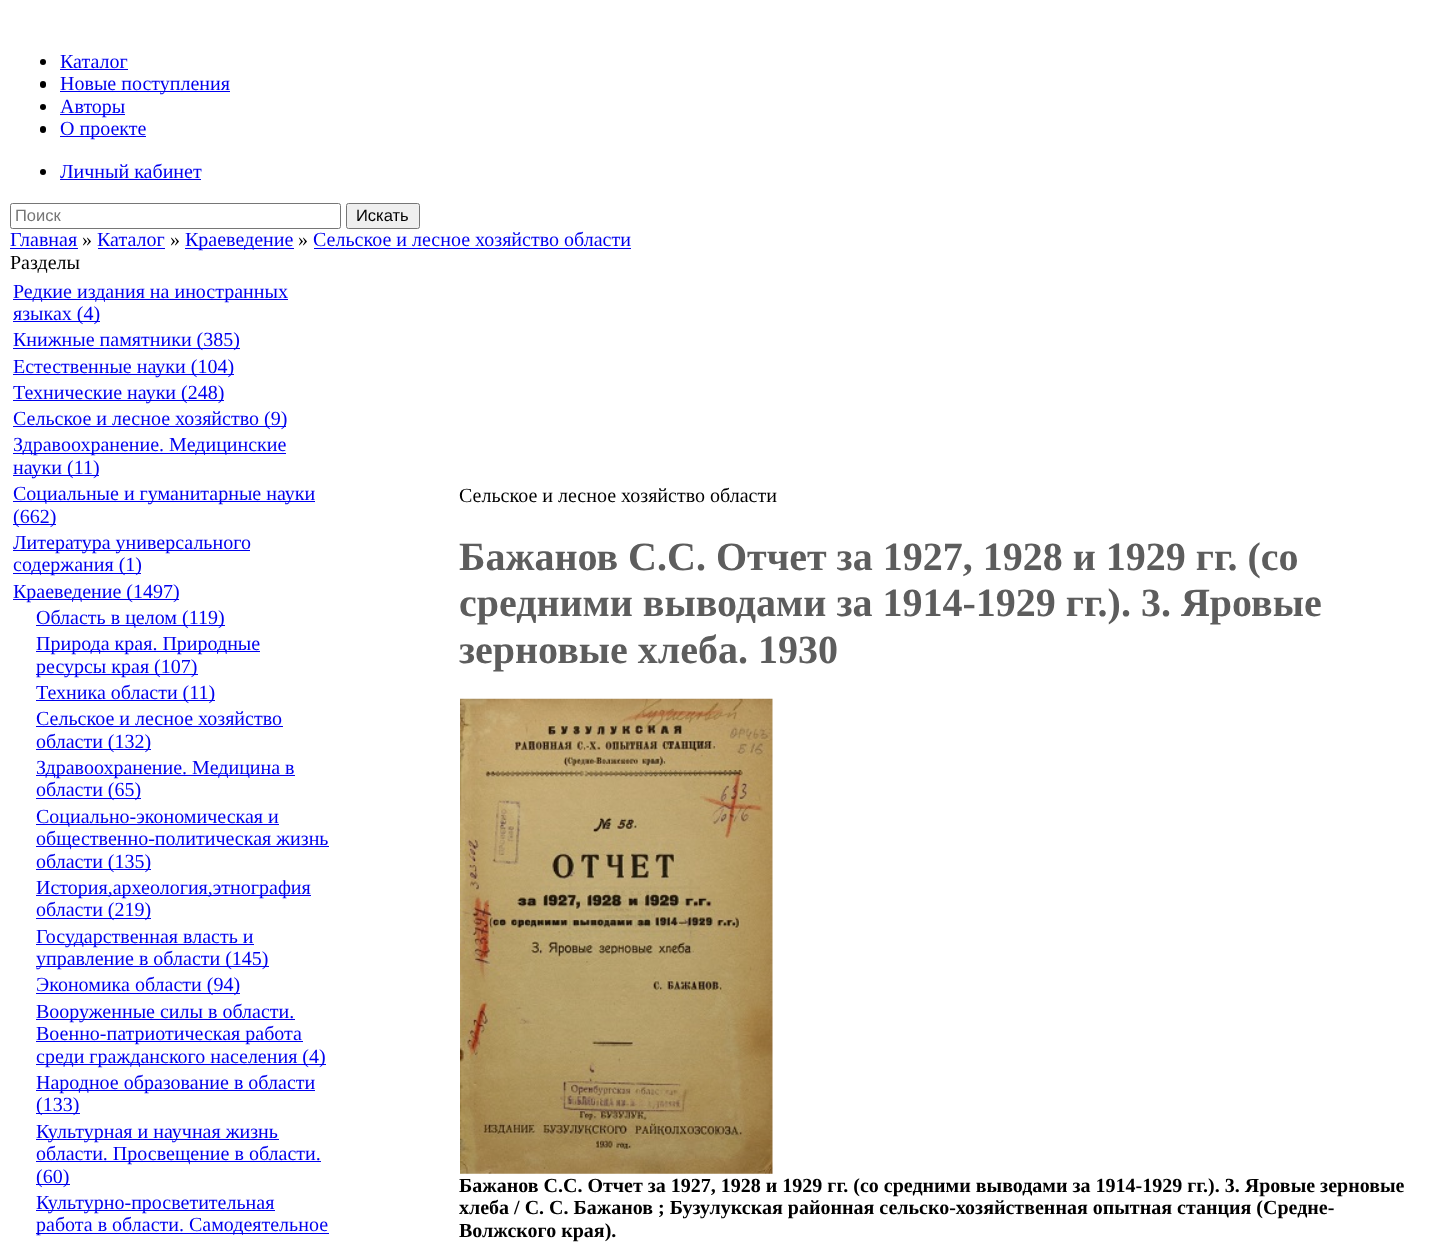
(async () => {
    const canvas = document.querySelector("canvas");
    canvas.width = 1429;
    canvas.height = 1248;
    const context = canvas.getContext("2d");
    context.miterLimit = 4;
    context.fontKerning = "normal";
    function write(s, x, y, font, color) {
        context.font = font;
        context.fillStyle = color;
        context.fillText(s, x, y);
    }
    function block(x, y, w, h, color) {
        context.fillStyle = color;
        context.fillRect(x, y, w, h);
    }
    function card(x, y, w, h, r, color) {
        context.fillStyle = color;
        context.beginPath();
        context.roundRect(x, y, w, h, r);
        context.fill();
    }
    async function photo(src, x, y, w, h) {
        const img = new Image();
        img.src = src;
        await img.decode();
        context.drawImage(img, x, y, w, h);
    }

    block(0, 0, 1429, 1248, "rgb(255, 255, 255)");
    context.fillStyle = "rgb(0, 0, 0)";
    context.beginPath();
    context.arc(43, 62, 3, 0, Math.PI * 2);
    context.fill();
    write("Каталог", 60, 68, "20px Liberation Serif", "rgb(0, 0, 238)");
    block(60, 69, 68, 1, "rgb(0, 0, 238)");
    card(40, 81, 6, 7, 3, "rgb(0, 0, 0)");
    block(60, 91, 170, 1, "rgb(0, 0, 238)");
    write("Новые поступления", 60, 90, "20px Liberation Serif", "rgb(0, 0, 238)");
    context.fillStyle = "rgb(0, 0, 0)";
    context.beginPath();
    context.arc(43, 107, 3, 0, Math.PI * 2);
    context.fill();
    block(60, 114, 65, 1, "rgb(0, 0, 238)");
    write("Авторы", 60, 113, "20px Liberation Serif", "rgb(0, 0, 238)");
    card(40, 126, 6, 7, 3, "rgb(0, 0, 0)");
    block(60, 136, 86, 1, "rgb(0, 0, 238)");
    write("О проекте", 60, 135, "20px Liberation Serif", "rgb(0, 0, 238)");
    context.fillStyle = "rgb(0, 0, 0)";
    context.beginPath();
    context.arc(43, 172, 3, 0, Math.PI * 2);
    context.fill();
    write("Личный кабинет", 60, 178, "20px Liberation Serif", "rgb(0, 0, 238)");
    block(60, 179, 141, 1, "rgb(0, 0, 238)");
    context.beginPath();
    context.roundRect(10.5, 203.5, 330, 25, 2);
    context.strokeStyle = "rgb(118, 118, 118)";
    context.stroke();
    write("Поиск", 15, 221, "16.5px Liberation Sans", "rgb(117, 117, 117)");
    context.fillStyle = "rgb(239, 239, 239)";
    context.beginPath();
    context.roundRect(346.5, 203.5, 73, 25, 2);
    context.fill();
    context.stroke();
    write("Искать", 356, 221, "16.5px Liberation Sans", "rgb(0, 0, 0)");
    write("Главная", 10, 246, "20px Liberation Serif", "rgb(0, 0, 238)");
    block(10, 248, 68, 1, "rgb(0, 0, 238)");
    write("»", 82, 246, "20px Liberation Serif", "rgb(0, 0, 0)");
    write("Каталог", 97, 246, "20px Liberation Serif", "rgb(0, 0, 238)");
    block(98, 248, 67, 1, "rgb(0, 0, 238)");
    write("»", 170, 246, "20px Liberation Serif", "rgb(0, 0, 0)");
    block(185, 248, 109, 1, "rgb(0, 0, 238)");
    write("Краеведение", 185, 246, "20px Liberation Serif", "rgb(0, 0, 238)");
    write("»", 298, 246, "20px Liberation Serif", "rgb(0, 0, 0)");
    write("Сельское и лесное хозяйство области", 313, 246, "20px Liberation Serif", "rgb(0, 0, 238)");
    block(314, 248, 317, 1, "rgb(0, 0, 238)");
    write("Разделы", 10, 269, "20px Liberation Serif", "rgb(0, 0, 0)");
    block(13, 299, 275, 1, "rgb(0, 0, 238)");
    write("Редкие издания на иностранных", 13, 298, "20px Liberation Serif", "rgb(0, 0, 238)");
    block(13, 321, 87, 1, "rgb(0, 0, 238)");
    write("языках (4)", 13, 320, "20px Liberation Serif", "rgb(0, 0, 238)");
    block(13, 348, 227, 1, "rgb(0, 0, 238)");
    write("Книжные памятники (385)", 13, 346, "20px Liberation Serif", "rgb(0, 0, 238)");
    block(13, 374, 221, 1, "rgb(0, 0, 238)");
    write("Естественные науки (104)", 13, 373, "20px Liberation Serif", "rgb(0, 0, 238)");
    block(13, 400, 211, 1, "rgb(0, 0, 238)");
    write("Технические науки (248)", 13, 399, "20px Liberation Serif", "rgb(0, 0, 238)");
    block(13, 426, 273, 1, "rgb(0, 0, 238)");
    write("Сельское и лесное хозяйство (9)", 13, 425, "20px Liberation Serif", "rgb(0, 0, 238)");
    block(13, 453, 273, 1, "rgb(0, 0, 238)");
    write("Здравоохранение. Медицинские", 13, 451, "20px Liberation Serif", "rgb(0, 0, 238)");
    block(13, 475, 86, 1, "rgb(0, 0, 238)");
    write("науки (11)", 13, 474, "20px Liberation Serif", "rgb(0, 0, 238)");
    block(13, 501, 302, 1, "rgb(0, 0, 238)");
    write("Социальные и гуманитарные науки", 13, 500, "20px Liberation Serif", "rgb(0, 0, 238)");
    block(13, 524, 43, 1, "rgb(0, 0, 238)");
    write("(662)", 13, 523, "20px Liberation Serif", "rgb(0, 0, 238)");
    block(13, 550, 237, 1, "rgb(0, 0, 238)");
    write("Литература универсального", 13, 549, "20px Liberation Serif", "rgb(0, 0, 238)");
    block(13, 573, 128, 1, "rgb(0, 0, 238)");
    write("содержания (1)", 13, 571, "20px Liberation Serif", "rgb(0, 0, 238)");
    block(13, 599, 166, 1, "rgb(0, 0, 238)");
    write("Краеведение (1497)", 13, 598, "20px Liberation Serif", "rgb(0, 0, 238)");
    block(36, 625, 189, 1, "rgb(0, 0, 238)");
    write("Область в целом (119)", 36, 624, "20px Liberation Serif", "rgb(0, 0, 238)");
    block(36, 651, 224, 1, "rgb(0, 0, 238)");
    write("Природа края. Природные", 36, 650, "20px Liberation Serif", "rgb(0, 0, 238)");
    block(36, 674, 162, 1, "rgb(0, 0, 238)");
    write("ресурсы края (107)", 36, 673, "20px Liberation Serif", "rgb(0, 0, 238)");
    block(36, 700, 179, 1, "rgb(0, 0, 238)");
    write("Техника области (11)", 36, 699, "20px Liberation Serif", "rgb(0, 0, 238)");
    write("Сельское и лесное хозяйство", 36, 725, "20px Liberation Serif", "rgb(0, 0, 238)");
    block(36, 726, 247, 1, "rgb(0, 0, 238)");
    block(36, 749, 115, 1, "rgb(0, 0, 238)");
    write("области (132)", 36, 748, "20px Liberation Serif", "rgb(0, 0, 238)");
    block(36, 775, 259, 1, "rgb(0, 0, 238)");
    write("Здравоохранение. Медицина в", 36, 774, "20px Liberation Serif", "rgb(0, 0, 238)");
    block(36, 798, 105, 1, "rgb(0, 0, 238)");
    write("области (65)", 36, 796, "20px Liberation Serif", "rgb(0, 0, 238)");
    block(36, 824, 243, 1, "rgb(0, 0, 238)");
    write("Социально-экономическая и", 36, 823, "20px Liberation Serif", "rgb(0, 0, 238)");
    block(36, 846, 293, 1, "rgb(0, 0, 238)");
    write("общественно-политическая жизнь", 36, 845, "20px Liberation Serif", "rgb(0, 0, 238)");
    block(36, 869, 115, 1, "rgb(0, 0, 238)");
    write("области (135)", 36, 868, "20px Liberation Serif", "rgb(0, 0, 238)");
    block(36, 895, 275, 1, "rgb(0, 0, 238)");
    write("История,археология,этнография", 36, 894, "20px Liberation Serif", "rgb(0, 0, 238)");
    block(36, 918, 115, 1, "rgb(0, 0, 238)");
    write("области (219)", 36, 916, "20px Liberation Serif", "rgb(0, 0, 238)");
    block(36, 944, 218, 1, "rgb(0, 0, 238)");
    write("Государственная власть и", 36, 943, "20px Liberation Serif", "rgb(0, 0, 238)");
    block(36, 966, 233, 1, "rgb(0, 0, 238)");
    write("управление в области (145)", 36, 965, "20px Liberation Serif", "rgb(0, 0, 238)");
    block(36, 993, 204, 1, "rgb(0, 0, 238)");
    write("Экономика области (94)", 36, 991, "20px Liberation Serif", "rgb(0, 0, 238)");
    block(36, 1019, 259, 1, "rgb(0, 0, 238)");
    write("Вооруженные силы в области.", 36, 1018, "20px Liberation Serif", "rgb(0, 0, 238)");
    block(36, 1041, 267, 1, "rgb(0, 0, 238)");
    write("Военно-патриотическая работа", 36, 1040, "20px Liberation Serif", "rgb(0, 0, 238)");
    block(36, 1064, 290, 1, "rgb(0, 0, 238)");
    write("среди гражданского населения (4)", 36, 1063, "20px Liberation Serif", "rgb(0, 0, 238)");
    block(36, 1090, 279, 1, "rgb(0, 0, 238)");
    write("Народное образование в области", 36, 1089, "20px Liberation Serif", "rgb(0, 0, 238)");
    block(36, 1113, 44, 1, "rgb(0, 0, 238)");
    write("(133)", 36, 1111, "20px Liberation Serif", "rgb(0, 0, 238)");
    block(36, 1139, 243, 1, "rgb(0, 0, 238)");
    write("Культурная и научная жизнь", 36, 1138, "20px Liberation Serif", "rgb(0, 0, 238)");
    block(36, 1161, 285, 1, "rgb(0, 0, 238)");
    write("области. Просвещение в области.", 36, 1160, "20px Liberation Serif", "rgb(0, 0, 238)");
    block(36, 1184, 34, 1, "rgb(0, 0, 238)");
    write("(60)", 36, 1183, "20px Liberation Serif", "rgb(0, 0, 238)");
    block(36, 1210, 239, 1, "rgb(0, 0, 238)");
    write("Культурно-просветительная", 36, 1209, "20px Liberation Serif", "rgb(0, 0, 238)");
    block(36, 1233, 293, 1, "rgb(0, 0, 238)");
    write("работа в области. Самодеятельное", 36, 1231, "20px Liberation Serif", "rgb(0, 0, 238)");
    write("Сельское и лесное хозяйство области", 459, 502, "20px Liberation Serif", "rgb(0, 0, 0)");
    write("Бажанов С.С. Отчет за 1927, 1928 и 1929 гг. (со", 459, 570, "bold 40px Liberation Serif", "rgb(93, 93, 93)");
    write("средними выводами за 1914-1929 гг.). 3. Яровые", 459, 616, "bold 40px Liberation Serif", "rgb(93, 93, 93)");
    write("зерновые хлеба. 1930", 459, 663, "bold 40px Liberation Serif", "rgb(93, 93, 93)");
    await photo("media/1.png", 460, 698, 313, 476);
    write("Бажанов С.С. Отчет за 1927, 1928 и 1929 гг. (со средними выводами за 1914-1929 гг.). 3. Яровые зерновые", 459, 1192, "bold 20px Liberation Serif", "rgb(0, 0, 0)");
    write("хлеба / С. С. Бажанов ; Бузулукская районная сельско-хозяйственная опытная станция (Средне-", 459, 1214, "bold 20px Liberation Serif", "rgb(0, 0, 0)");
    write("Волжского края).", 459, 1237, "bold 20px Liberation Serif", "rgb(0, 0, 0)");
})();
